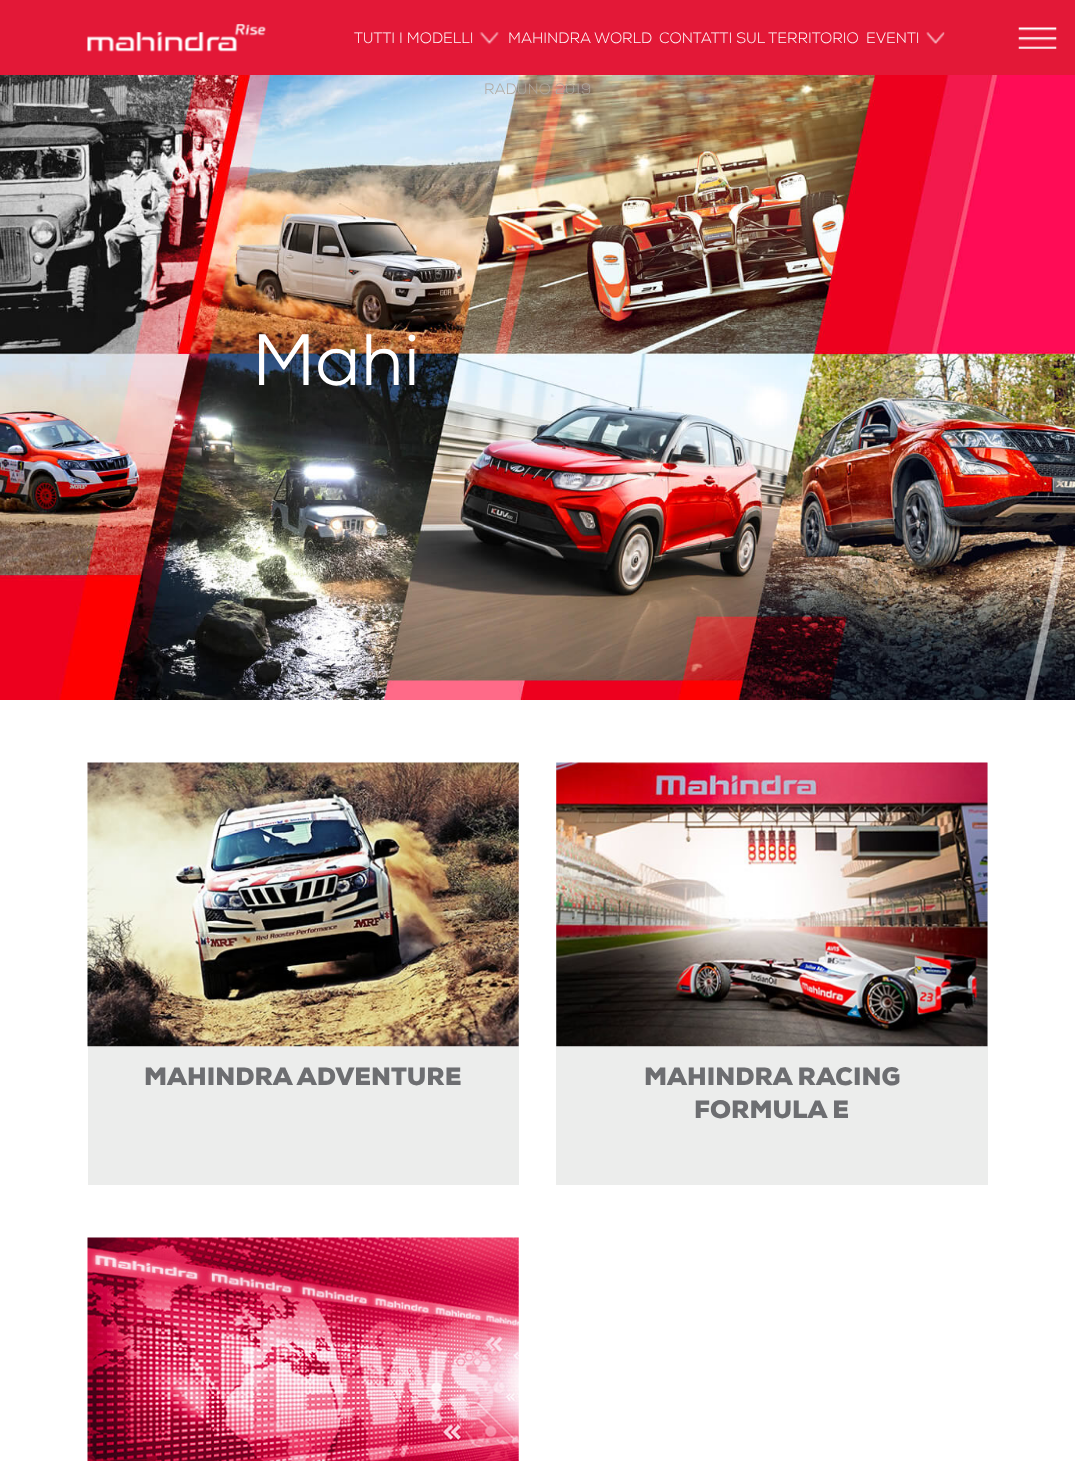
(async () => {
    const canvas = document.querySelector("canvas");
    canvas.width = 1075;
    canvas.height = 1461;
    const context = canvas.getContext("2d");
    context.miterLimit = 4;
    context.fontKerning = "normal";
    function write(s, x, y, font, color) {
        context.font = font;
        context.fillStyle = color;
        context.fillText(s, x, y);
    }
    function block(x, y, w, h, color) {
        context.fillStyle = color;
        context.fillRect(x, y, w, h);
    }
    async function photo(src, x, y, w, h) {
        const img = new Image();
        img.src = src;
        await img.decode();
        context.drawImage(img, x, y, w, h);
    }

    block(0, 0, 1075, 1461, "rgb(255, 255, 255)");
    block(0, 0, 1075, 75, "rgb(227, 24, 55)");
    await photo("media/1.png", 87, 24, 179, 28);
    write("TUTTI I MODELLI", 354, 43, "300 15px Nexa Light", "rgb(255, 255, 255)");
    await photo("media/2.png", 479, 32, 20, 13);
    write("EVENTI", 866, 43, "300 15px Nexa Light", "rgb(255, 255, 255)");
    await photo("media/3.png", 926, 32, 19, 12);
    await photo("media/5.png", 0, 75, 1075, 625);
    write("RADUNO 2019", 484, 94, "300 15px Nexa Light", "rgb(175, 166, 157)");
    write("MAHINDRA WORLD", 508, 43, "300 15px Nexa Light", "rgb(255, 255, 255)");
    write("CONTATTI SUL TERRITORIO", 659, 43, "300 15px Nexa Light", "rgb(255, 255, 255)");
    await photo("media/4.png", 1018, 27, 39, 22);
    write("Mahi", 252, 385, "72.5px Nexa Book", "rgb(255, 255, 255)");
    block(88, 763, 431, 422, "rgb(236, 237, 236)");
    await photo("media/6.png", 87, 762, 432, 285);
    write("MAHINDRA ADVENTURE", 144, 1085, "900 25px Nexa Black", "rgb(109, 110, 113)");
    block(556, 763, 432, 422, "rgb(236, 237, 236)");
    await photo("media/7.png", 556, 762, 432, 285);
    write("MAHINDRA RACING", 644, 1085, "900 25px Nexa Black", "rgb(109, 110, 113)");
    write("FORMULA E", 694, 1118, "900 25px Nexa Black", "rgb(109, 110, 113)");
    await photo("media/8.png", 87, 1237, 432, 224);
})();
